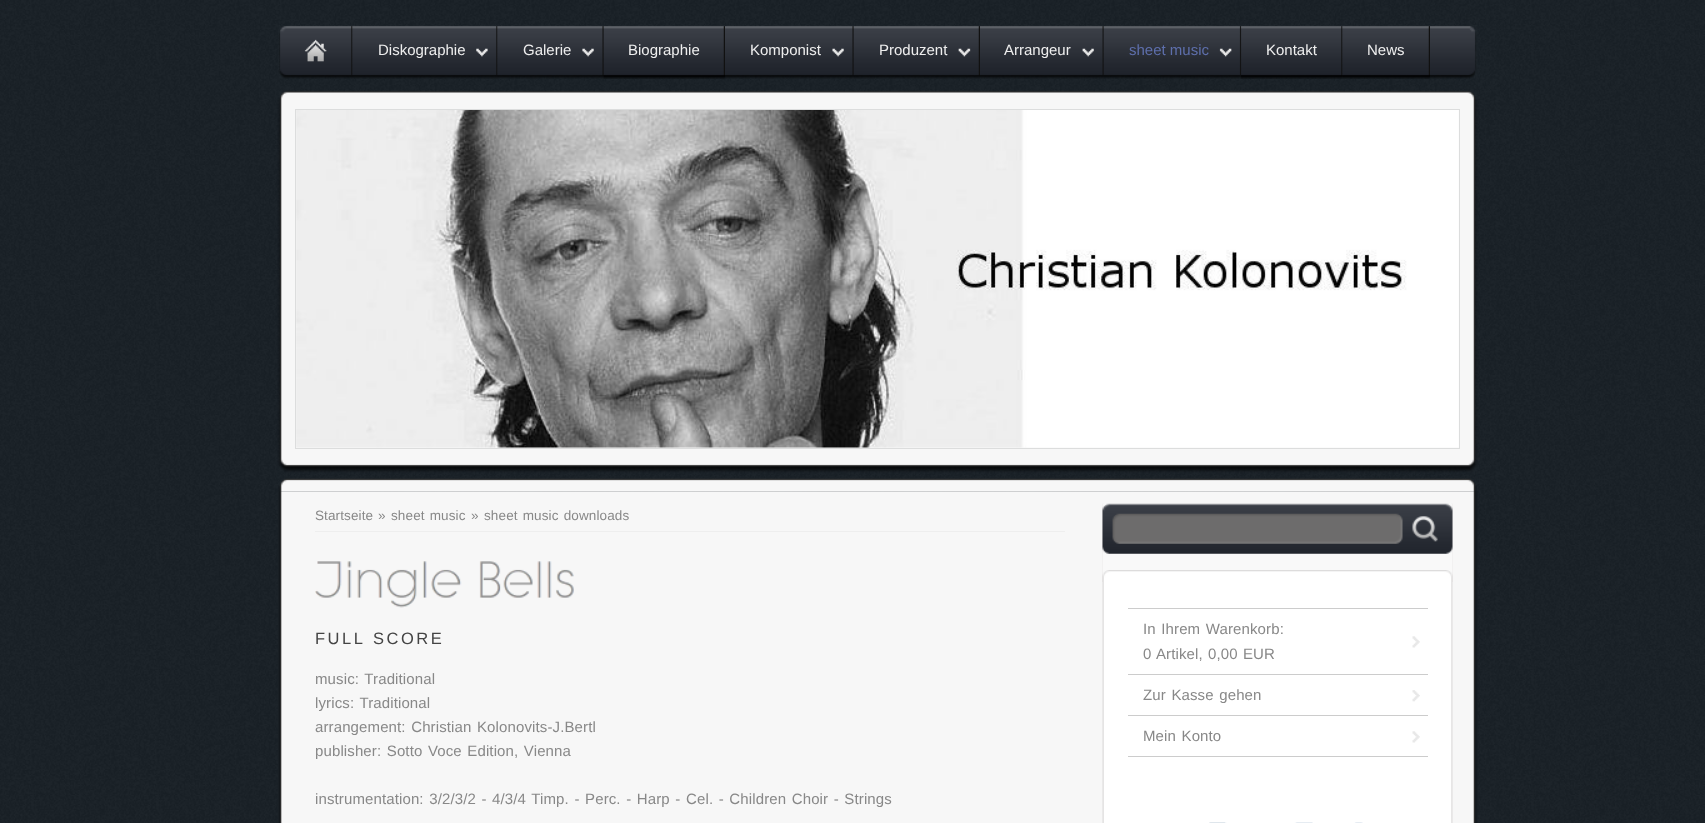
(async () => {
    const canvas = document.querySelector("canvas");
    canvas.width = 1705;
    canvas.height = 823;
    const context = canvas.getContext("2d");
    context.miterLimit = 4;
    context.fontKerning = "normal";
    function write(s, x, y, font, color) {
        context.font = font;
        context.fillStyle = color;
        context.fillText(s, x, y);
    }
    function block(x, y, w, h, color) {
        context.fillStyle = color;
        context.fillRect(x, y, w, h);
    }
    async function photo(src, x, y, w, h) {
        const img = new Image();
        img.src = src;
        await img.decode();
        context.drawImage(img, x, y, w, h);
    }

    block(0, 0, 1705, 823, "rgb(255, 255, 255)");
    await photo("media/1.png", 0, 0, 1705, 823);
    await photo("media/2.png", 278, 25, 1200, 54);
    await photo("media/3.png", 283, 26, 70, 49);
    await photo("media/4.png", 352, 25, 146, 50);
    write("Diskographie", 378, 55, "15px Liberation Sans", "rgb(238, 238, 238)");
    await photo("media/5.png", 497, 25, 107, 51);
    write("Galerie", 523, 55, "15px Liberation Sans", "rgb(238, 238, 238)");
    await photo("media/6.png", 603, 25, 122, 54);
    write("Biographie", 628, 55, "15px Liberation Sans", "rgb(238, 238, 238)");
    await photo("media/7.png", 759, 25, 95, 50);
    write("Komponist", 750, 55, "15px Liberation Sans", "rgb(238, 238, 238)");
    await photo("media/8.png", 853, 25, 127, 51);
    write("Produzent", 879, 55, "15px Liberation Sans", "rgb(238, 238, 238)");
    await photo("media/9.png", 1028, 25, 76, 50);
    write("Arrangeur", 1004, 55, "15px Liberation Sans", "rgb(238, 238, 238)");
    await photo("media/10.png", 1103, 25, 139, 50);
    write("sheet music", 1129, 55, "15px Liberation Sans", "rgb(94, 111, 172)");
    await photo("media/11.png", 1241, 26, 102, 53);
    write("Kontakt", 1266, 55, "15px Liberation Sans", "rgb(238, 238, 238)");
    await photo("media/12.png", 1342, 25, 88, 54);
    write("News", 1367, 55, "15px Liberation Sans", "rgb(238, 238, 238)");
    await photo("media/13.png", 277, 79, 1201, 399);
    context.strokeStyle = "rgb(220, 221, 221)";
    context.strokeRect(295.5, 109.5, 1164, 339);
    await photo("media/14.png", 296, 110, 1163, 338);
    await photo("media/15.png", 278, 478, 1199, 14);
    await photo("media/16.png", 278, 491, 1200, 332);
    block(315, 531, 750, 1, "rgb(238, 238, 238)");
    context.letterSpacing = "0.12px";
    write("Startseite", 315, 520, "13.5px Liberation Sans", "rgb(136, 136, 136)");
    write("»", 378, 520, "13.5px Liberation Sans", "rgb(136, 136, 136)");
    context.wordSpacing = "1.25px";
    write("sheet music", 391, 520, "13.5px Liberation Sans", "rgb(136, 136, 136)");
    context.wordSpacing = "0px";
    write("»", 471, 520, "13.5px Liberation Sans", "rgb(136, 136, 136)");
    context.wordSpacing = "1.25px";
    write("sheet music downloads", 484, 520, "13.5px Liberation Sans", "rgb(136, 136, 136)");
    await photo("media/17.png", 315, 561, 259, 47);
    context.letterSpacing = "2.5px";
    write("FULL SCORE", 315, 644, "16.5px Liberation Sans", "rgb(68, 68, 68)");
    context.letterSpacing = "0.12px";
    write("music: Traditional", 315, 684, "15px Liberation Sans", "rgb(136, 136, 136)");
    write("lyrics: Traditional", 315, 708, "15px Liberation Sans", "rgb(136, 136, 136)");
    write("arrangement: Christian Kolonovits-J.Bertl", 315, 732, "15px Liberation Sans", "rgb(136, 136, 136)");
    write("publisher: Sotto Voce Edition, Vienna", 315, 756, "15px Liberation Sans", "rgb(136, 136, 136)");
    write("instrumentation: 3/2/3/2 - 4/3/4 Timp. - Perc. - Harp - Cel. - Children Choir - Strings", 315, 804, "15px Liberation Sans", "rgb(136, 136, 136)");
    await photo("media/18.png", 1102, 503, 351, 320);
    await photo("media/19.png", 1102, 503, 351, 67);
    await photo("media/20.png", 1412, 516, 26, 26);
    await photo("media/21.png", 1102, 570, 351, 12);
    block(1128, 608, 300, 1, "rgb(204, 204, 204)");
    await photo("media/22.png", 1412, 636, 8, 12);
    block(1128, 674, 300, 1, "rgb(204, 204, 204)");
    write("In Ihrem Warenkorb:", 1143, 634, "15px Liberation Sans", "rgb(136, 136, 136)");
    context.wordSpacing = "0px";
    write("0", 1143, 659, "15px Liberation Sans", "rgb(136, 136, 136)");
    write("Artikel,", 1156, 659, "15px Liberation Sans", "rgb(136, 136, 136)");
    write("0,00", 1208, 659, "15px Liberation Sans", "rgb(136, 136, 136)");
    write("EUR", 1243, 659, "15px Liberation Sans", "rgb(136, 136, 136)");
    await photo("media/23.png", 1412, 690, 8, 12);
    block(1128, 715, 300, 1, "rgb(204, 204, 204)");
    context.wordSpacing = "1.25px";
    write("Zur Kasse gehen", 1143, 700, "15px Liberation Sans", "rgb(136, 136, 136)");
    await photo("media/22.png", 1412, 731, 8, 12);
    block(1128, 756, 300, 1, "rgb(204, 204, 204)");
    write("Mein Konto", 1143, 741, "15px Liberation Sans", "rgb(136, 136, 136)");
    await photo("media/24.png", 1209, 822, 154, 1);
})();
